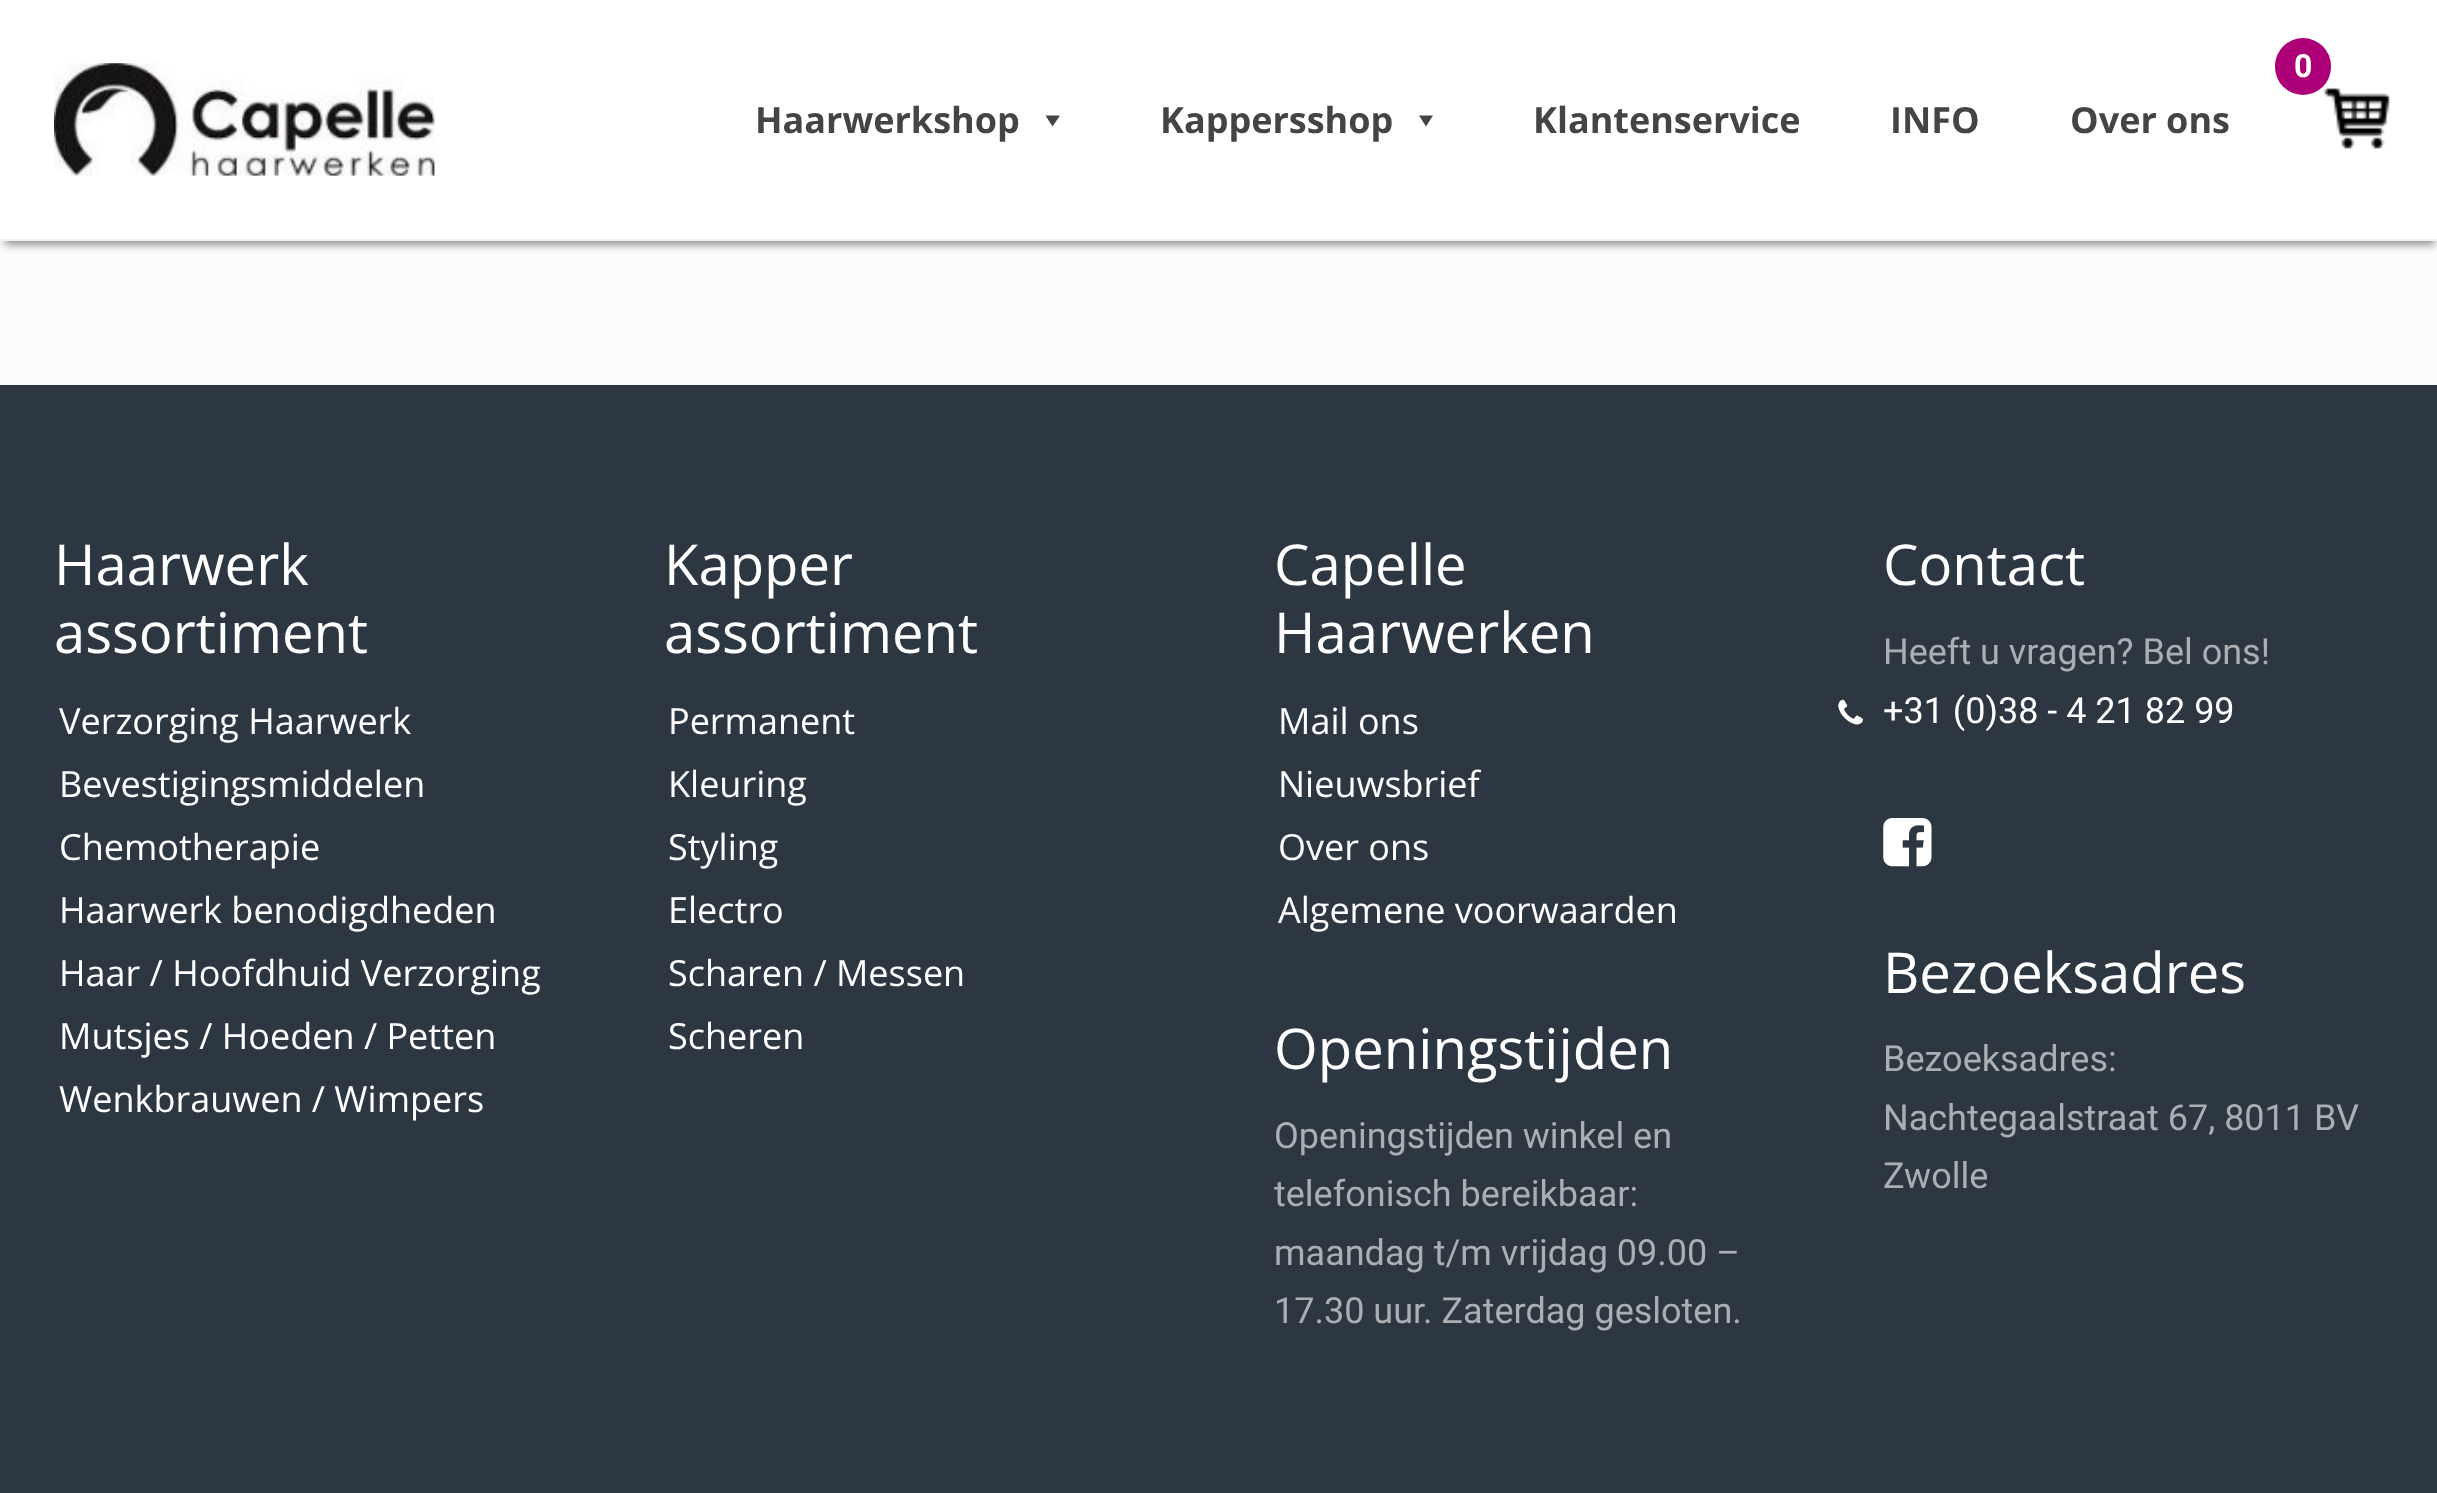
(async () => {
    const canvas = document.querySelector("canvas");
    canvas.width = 2437;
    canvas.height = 1493;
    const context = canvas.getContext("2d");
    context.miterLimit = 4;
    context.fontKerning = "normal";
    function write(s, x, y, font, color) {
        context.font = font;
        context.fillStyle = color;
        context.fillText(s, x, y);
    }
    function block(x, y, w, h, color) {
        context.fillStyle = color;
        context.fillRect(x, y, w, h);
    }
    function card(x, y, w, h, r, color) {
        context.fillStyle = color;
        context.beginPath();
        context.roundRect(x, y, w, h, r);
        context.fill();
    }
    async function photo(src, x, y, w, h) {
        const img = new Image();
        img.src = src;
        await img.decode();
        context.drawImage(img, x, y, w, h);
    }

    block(0, 0, 2437, 1493, "rgb(252, 252, 252)");
    context.fillStyle = "rgba(0, 0, 0, 0.42)";
    context.filter = "blur(4.5px)";
    context.beginPath();
    context.rect(5, 14, 2430, 231);
    context.fill();
    context.filter = "none";
    block(0, 0, 2437, 239, "rgb(255, 255, 255)");
    block(0, 239, 2437, 2, "rgb(242, 242, 242)");
    await photo("media/1.png", 54, 63, 381, 113);
    await photo("media/2.png", 2324, 88, 66, 61);
    card(2275, 38, 56, 57, 28, "rgb(173, 0, 120)");
    write("0", 2294, 77, "bold 32px Roboto", "rgb(255, 255, 255)");
    write("Haarwerkshop", 755, 133, "bold 36px Open Sans", "rgb(68, 68, 68)");
    context.beginPath();
    context.moveTo(1060, 115.5);
    context.lineTo(1052.5, 126.5);
    context.lineTo(1045.5, 115.5);
    context.closePath();
    context.fill();
    write("Kappersshop", 1160, 133, "bold 36px Open Sans", "rgb(68, 68, 68)");
    context.beginPath();
    context.moveTo(1433, 115.5);
    context.lineTo(1426, 126.5);
    context.lineTo(1419, 115.5);
    context.closePath();
    context.fill();
    write("Klantenservice", 1533, 133, "bold 36px Open Sans", "rgb(68, 68, 68)");
    write("INFO", 1890, 133, "bold 36px Open Sans", "rgb(68, 68, 68)");
    write("Over ons", 2070, 133, "bold 36px Open Sans", "rgb(68, 68, 68)");
    block(0, 385, 2437, 1108, "rgb(45, 55, 66)");
    write("Haarwerk", 54, 585, "56.25px Open Sans", "rgb(255, 255, 255)");
    write("assortiment", 54, 653, "56.25px Open Sans", "rgb(255, 255, 255)");
    write("Verzorging Haarwerk", 59, 734, "36px Open Sans", "rgb(255, 255, 255)");
    write("Bevestigingsmiddelen", 59, 797, "36px Open Sans", "rgb(255, 255, 255)");
    write("Chemotherapie", 59, 860, "36px Open Sans", "rgb(255, 255, 255)");
    write("Haarwerk benodigdheden", 59, 923, "36px Open Sans", "rgb(255, 255, 255)");
    write("Haar / Hoofdhuid Verzorging", 59, 986, "36px Open Sans", "rgb(255, 255, 255)");
    write("Mutsjes / Hoeden / Petten", 59, 1049, "36px Open Sans", "rgb(255, 255, 255)");
    write("Wenkbrauwen / Wimpers", 59, 1112, "36px Open Sans", "rgb(255, 255, 255)");
    write("Kapper", 664, 585, "56.25px Open Sans", "rgb(255, 255, 255)");
    write("assortiment", 664, 653, "56.25px Open Sans", "rgb(255, 255, 255)");
    write("Permanent", 668, 734, "36px Open Sans", "rgb(255, 255, 255)");
    write("Kleuring", 668, 797, "36px Open Sans", "rgb(255, 255, 255)");
    write("Styling", 668, 860, "36px Open Sans", "rgb(255, 255, 255)");
    write("Electro", 668, 923, "36px Open Sans", "rgb(255, 255, 255)");
    write("Scharen / Messen", 668, 986, "36px Open Sans", "rgb(255, 255, 255)");
    write("Scheren", 668, 1049, "36px Open Sans", "rgb(255, 255, 255)");
    write("Capelle", 1274, 585, "56.25px Open Sans", "rgb(255, 255, 255)");
    write("Haarwerken", 1274, 653, "56.25px Open Sans", "rgb(255, 255, 255)");
    write("Mail ons", 1278, 734, "36px Open Sans", "rgb(255, 255, 255)");
    write("Nieuwsbrief", 1278, 797, "36px Open Sans", "rgb(255, 255, 255)");
    write("Over ons", 1278, 860, "36px Open Sans", "rgb(255, 255, 255)");
    write("Algemene voorwaarden", 1278, 923, "36px Open Sans", "rgb(255, 255, 255)");
    write("Openingstijden", 1274, 1069, "56.25px Open Sans", "rgb(255, 255, 255)");
    write("Openingstijden winkel en", 1274, 1148, "36px Roboto", "rgb(171, 175, 179)");
    write("telefonisch bereikbaar:", 1274, 1206, "36px Roboto", "rgb(171, 175, 179)");
    write("maandag t/m vrijdag 09.00 –", 1274, 1265, "36px Roboto", "rgb(171, 175, 179)");
    write("17.30 uur. Zaterdag gesloten.", 1274, 1323, "36px Roboto", "rgb(171, 175, 179)");
    write("Contact", 1883, 585, "56.25px Open Sans", "rgb(255, 255, 255)");
    write("Heeft u vragen? Bel ons!", 1883, 664, "36px Roboto", "rgb(171, 175, 179)");
    await photo("media/3.png", 1838, 699, 25, 26);
    write("+31 (0)38 - 4 21 82 99", 1883, 723, "36px Roboto", "rgb(255, 255, 255)");
    await photo("media/4.png", 1883, 818, 49, 49);
    write("Bezoeksadres", 1883, 993, "56.25px Open Sans", "rgb(255, 255, 255)");
    write("Bezoeksadres:", 1883, 1071, "36px Roboto", "rgb(171, 175, 179)");
    write("Nachtegaalstraat 67, 8011 BV", 1883, 1130, "36px Roboto", "rgb(171, 175, 179)");
    write("Zwolle", 1883, 1188, "36px Roboto", "rgb(171, 175, 179)");
})();
